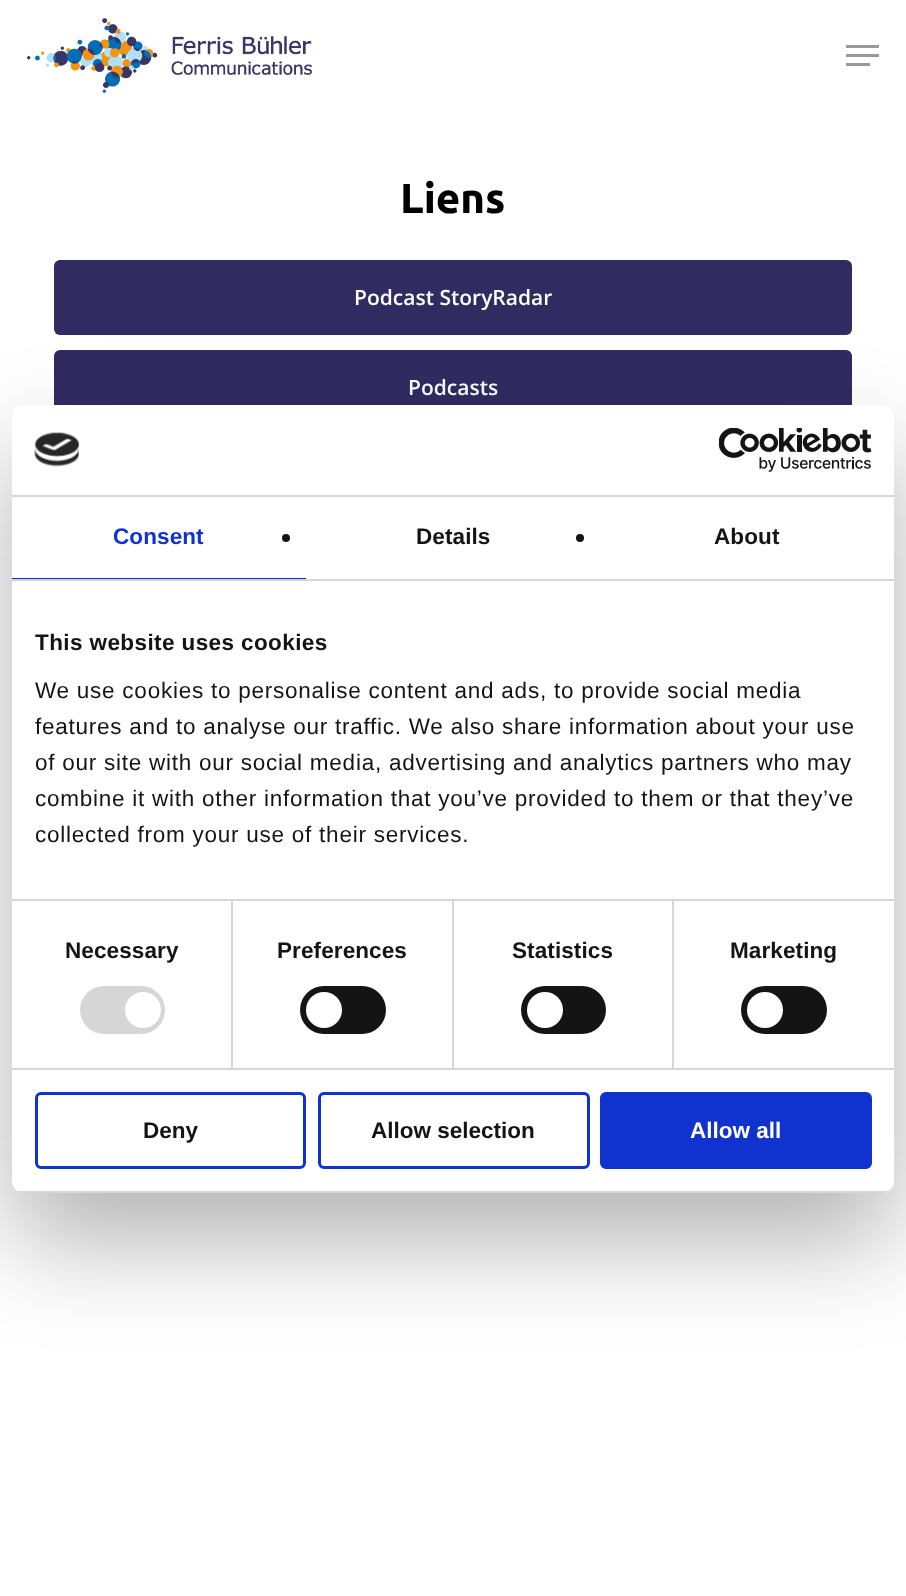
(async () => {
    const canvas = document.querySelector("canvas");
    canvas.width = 906;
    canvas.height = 1596;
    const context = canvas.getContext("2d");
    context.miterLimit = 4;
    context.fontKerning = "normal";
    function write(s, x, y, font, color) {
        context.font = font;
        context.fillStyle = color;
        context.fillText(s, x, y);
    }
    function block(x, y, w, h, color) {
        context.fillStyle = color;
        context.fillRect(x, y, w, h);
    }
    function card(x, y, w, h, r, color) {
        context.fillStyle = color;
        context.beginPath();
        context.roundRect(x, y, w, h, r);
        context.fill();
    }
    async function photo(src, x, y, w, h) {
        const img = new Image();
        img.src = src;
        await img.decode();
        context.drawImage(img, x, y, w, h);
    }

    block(0, 0, 906, 1596, "rgb(255, 255, 255)");
    await photo("media/1.png", 27, 18, 285, 75);
    block(846, 45, 33, 3, "rgb(153, 153, 153)");
    block(846, 63, 24, 3, "rgb(153, 153, 153)");
    block(846, 54, 33, 3, "rgb(153, 153, 153)");
    write("Liens", 400, 213, "bold 42px Ubuntu", "rgb(0, 0, 0)");
    card(54, 260, 798, 75, 6, "rgb(48, 44, 98)");
    write("Podcast StoryRadar", 354, 305, "600 21px Open Sans", "rgb(255, 255, 255)");
    card(54, 350, 798, 75, 6, "rgb(48, 44, 98)");
    write("Podcasts", 408, 395, "600 21px Open Sans", "rgb(255, 255, 255)");
    context.fillStyle = "rgba(0, 0, 0, 0.3)";
    context.filter = "blur(51px)";
    context.beginPath();
    context.roundRect(12, 453, 882, 788, 12);
    context.fill();
    context.filter = "none";
    card(12, 405, 882, 788, 12, "rgb(255, 255, 255)");
    block(12, 495, 882, 2, "rgb(214, 214, 214)");
    await photo("media/2.png", 34, 432, 46, 35);
    await photo("media/3.png", 719, 428, 153, 44);
    block(12, 579, 882, 2, "rgb(214, 214, 214)");
    block(12, 578, 294, 1, "rgb(16, 50, 207)");
    context.letterSpacing = "0.1px";
    write("Consent", 113, 544, "bold 22.5px Liberation Sans", "rgb(16, 50, 207)");
    context.fillStyle = "rgb(20, 20, 20)";
    context.beginPath();
    context.arc(286, 538, 4, 0, Math.PI * 2);
    context.fill();
    write("Details", 416, 544, "bold 22.5px Liberation Sans", "rgb(20, 20, 20)");
    context.beginPath();
    context.arc(580, 538, 4, 0, Math.PI * 2);
    context.fill();
    write("About", 714, 544, "bold 22.5px Liberation Sans", "rgb(20, 20, 20)");
    block(231, 900, 2, 168, "rgb(214, 214, 214)");
    block(452, 900, 2, 168, "rgb(214, 214, 214)");
    block(672, 900, 2, 168, "rgb(214, 214, 214)");
    block(12, 899, 882, 2, "rgb(214, 214, 214)");
    context.letterSpacing = "0.4px";
    write("This website uses cookies", 35, 650, "bold 22.5px Liberation Sans", "rgb(20, 20, 20)");
    context.letterSpacing = "0.75px";
    write("We use cookies to personalise content and ads, to provide social media", 35, 698, "22.5px Liberation Sans", "rgb(20, 20, 20)");
    write("features and to analyse our traffic. We also share information about your use", 35, 734, "22.5px Liberation Sans", "rgb(20, 20, 20)");
    write("of our site with our social media, advertising and analytics partners who may", 35, 770, "22.5px Liberation Sans", "rgb(20, 20, 20)");
    write("combine it with other information that you’ve provided to them or that they’ve", 35, 806, "22.5px Liberation Sans", "rgb(20, 20, 20)");
    write("collected from your use of their services.", 35, 842, "22.5px Liberation Sans", "rgb(20, 20, 20)");
    block(12, 1068, 882, 2, "rgb(214, 214, 214)");
    context.letterSpacing = "0.1px";
    write("Necessary", 65, 958, "bold 22.5px Liberation Sans", "rgb(20, 20, 20)");
    card(80, 986, 85, 48, 24, "rgb(214, 214, 214)");
    context.fillStyle = "rgb(255, 255, 255)";
    context.beginPath();
    context.arc(143, 1010, 18, 0, Math.PI * 2);
    context.fill();
    write("Preferences", 277, 958, "bold 22.5px Liberation Sans", "rgb(20, 20, 20)");
    card(300, 986, 86, 48, 24, "rgb(20, 20, 20)");
    context.fillStyle = "rgb(255, 255, 255)";
    context.beginPath();
    context.arc(324, 1010, 18, 0, Math.PI * 2);
    context.fill();
    write("Statistics", 512, 958, "bold 22.5px Liberation Sans", "rgb(20, 20, 20)");
    card(521, 986, 85, 48, 24, "rgb(20, 20, 20)");
    context.fillStyle = "rgb(255, 255, 255)";
    context.beginPath();
    context.arc(545, 1010, 18, 0, Math.PI * 2);
    context.fill();
    write("Marketing", 730, 958, "bold 22.5px Liberation Sans", "rgb(20, 20, 20)");
    card(741, 986, 86, 48, 24, "rgb(20, 20, 20)");
    context.fillStyle = "rgb(255, 255, 255)";
    context.beginPath();
    context.arc(765, 1010, 18, 0, Math.PI * 2);
    context.fill();
    context.save();
    context.beginPath();
    context.roundRect(12, 405, 882, 788, 12);
    context.clip();
    block(12, 1191, 882, 2, "rgb(214, 214, 214)");
    context.restore();
    context.beginPath();
    context.roundRect(36.5, 1093.5, 268, 74, 4.5);
    context.strokeStyle = "rgb(16, 50, 207)";
    context.lineWidth = 3;
    context.stroke();
    context.letterSpacing = "0px";
    write("Deny", 143, 1138, "bold 22.5px Liberation Sans", "rgb(20, 20, 20)");
    context.beginPath();
    context.roundRect(319.5, 1093.5, 269, 74, 4.5);
    context.stroke();
    write("Allow selection", 371, 1138, "bold 22.5px Liberation Sans", "rgb(20, 20, 20)");
    context.fillStyle = "rgb(16, 50, 207)";
    context.beginPath();
    context.roundRect(601.5, 1093.5, 269, 74, 4.5);
    context.fill();
    context.stroke();
    write("Allow all", 690, 1138, "bold 22.5px Liberation Sans", "rgb(255, 255, 255)");
})();
